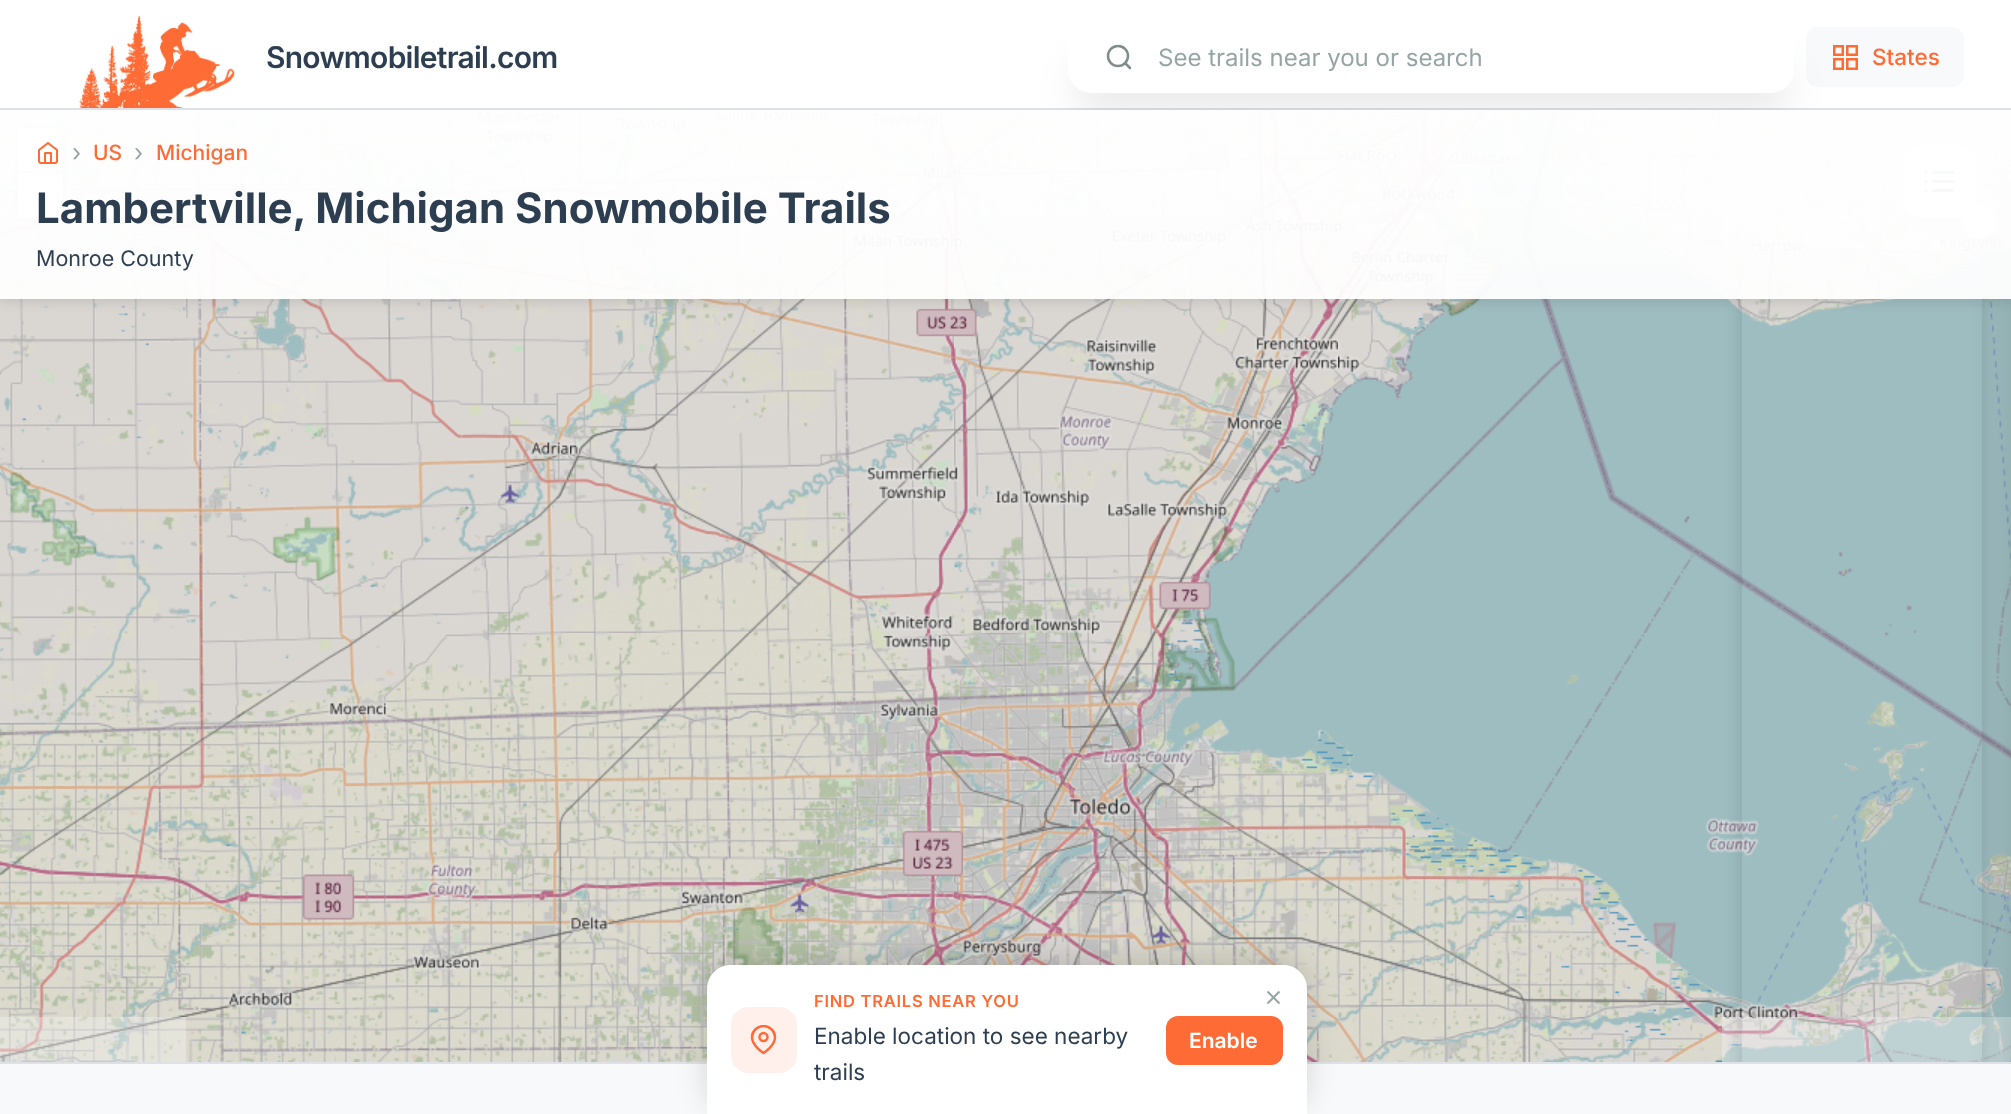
(async () => {
    const canvas = document.querySelector("canvas");
    canvas.width = 2011;
    canvas.height = 1114;
    const context = canvas.getContext("2d");
    context.miterLimit = 4;
    context.fontKerning = "normal";
    function write(s, x, y, font, color) {
        context.font = font;
        context.fillStyle = color;
        context.fillText(s, x, y);
    }
    function block(x, y, w, h, color) {
        context.fillStyle = color;
        context.fillRect(x, y, w, h);
    }
    function card(x, y, w, h, r, color) {
        context.fillStyle = color;
        context.beginPath();
        context.roundRect(x, y, w, h, r);
        context.fill();
    }
    async function photo(src, x, y, w, h) {
        const img = new Image();
        img.src = src;
        await img.decode();
        context.drawImage(img, x, y, w, h);
    }
    let gradient;

    block(0, 0, 2011, 1114, "rgb(255, 255, 255)");
    block(0, 110, 2011, 952, "rgb(245, 245, 245)");
    await photo("media/7.png", 1722, 110, 289, 139);
    await photo("media/13.png", 1722, 249, 289, 384);
    await photo("media/19.png", 1722, 633, 289, 384);
    await photo("media/25.png", 1722, 1017, 289, 45);
    await photo("media/6.png", 1338, 110, 384, 139);
    await photo("media/12.png", 1338, 249, 384, 384);
    await photo("media/18.png", 1338, 633, 384, 384);
    await photo("media/24.png", 1338, 1017, 384, 45);
    block(0, 1064, 2011, 50, "rgb(248, 249, 250)");
    block(0, 1062, 2011, 2, "rgb(222, 226, 230)");
    context.save();
    context.beginPath();
    context.rect(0, 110, 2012, 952);
    context.clip();
    context.beginPath();
    context.moveTo(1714, 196);
    context.lineTo(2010, 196);
    context.lineTo(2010, 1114);
    context.lineTo(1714, 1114);
    context.closePath();
    context.moveTo(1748, 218);
    context.lineTo(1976, 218);
    context.bezierCurveTo(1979.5, 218, 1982, 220.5, 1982, 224);
    context.lineTo(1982, 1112);
    context.bezierCurveTo(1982, 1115.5, 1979.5, 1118, 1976, 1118);
    context.lineTo(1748, 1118);
    context.bezierCurveTo(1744.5, 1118, 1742, 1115.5, 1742, 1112);
    context.lineTo(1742, 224);
    context.bezierCurveTo(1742, 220.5, 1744.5, 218, 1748, 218);
    context.closePath();
    context.clip("evenodd");
    context.fillStyle = "rgba(0, 0, 0, 0.15)";
    context.filter = "blur(9px)";
    context.beginPath();
    context.roundRect(1742, 224, 240, 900, 6);
    context.fill();
    context.filter = "none";
    context.restore();
    context.fillStyle = "rgba(0, 0, 0, 0.15)";
    context.filter = "blur(6px)";
    context.beginPath();
    context.roundRect(1961, 206, 36, 36, 18);
    context.fill();
    context.filter = "none";
    context.fillStyle = "rgb(255, 255, 255)";
    context.beginPath();
    context.arc(1979, 221, 18, 0, Math.PI * 2);
    context.fill();
    context.save();
    context.beginPath();
    context.moveTo(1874, 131);
    context.lineTo(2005, 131);
    context.lineTo(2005, 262);
    context.lineTo(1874, 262);
    context.closePath();
    context.moveTo(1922, 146);
    context.lineTo(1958, 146);
    context.bezierCurveTo(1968, 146, 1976, 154, 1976, 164);
    context.lineTo(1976, 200);
    context.bezierCurveTo(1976, 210, 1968, 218, 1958, 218);
    context.lineTo(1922, 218);
    context.bezierCurveTo(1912, 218, 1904, 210, 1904, 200);
    context.lineTo(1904, 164);
    context.bezierCurveTo(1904, 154, 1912, 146, 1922, 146);
    context.closePath();
    context.clip("evenodd");
    context.fillStyle = "rgba(0, 0, 0, 0.08)";
    context.filter = "blur(11px)";
    context.beginPath();
    context.roundRect(1908, 165, 63, 63, 14);
    context.fill();
    context.filter = "none";
    context.restore();
    card(1904, 146, 72, 72, 18, "rgba(255, 255, 255, 0.95)");
    context.beginPath();
    context.roundRect(1905, 147, 70, 70, 17);
    context.strokeStyle = "rgba(255, 255, 255, 0.8)";
    context.lineWidth = 2;
    context.stroke();
    await photo("media/27.png", 1924, 171, 31, 21);
    context.save();
    context.beginPath();
    context.rect(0, 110, 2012, 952);
    context.clip();
    context.fillStyle = "rgba(0, 0, 0, 0.12)";
    context.filter = "blur(18px)";
    context.beginPath();
    context.roundRect(2006, 110, 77, 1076, 18);
    context.fill();
    context.filter = "none";
    context.restore();
    block(0, 108, 2011, 2, "rgb(222, 226, 230)");
    await photo("media/1.png", 79, 15, 156, 93);
    context.letterSpacing = "-0.75px";
    write("Snowmobiletrail.com", 266, 68, "600 30px Inter", "rgb(44, 62, 80)");
    card(1806, 27, 158, 60, 12, "rgb(248, 249, 250)");
    context.strokeStyle = "rgb(255, 107, 53)";
    context.lineWidth = 2.5;
    context.strokeRect(1834.25, 46.25, 8.5, 8.5);
    context.strokeRect(1834.25, 59.25, 8.5, 9.5);
    await photo("media/5.png", 954, 110, 384, 139);
    context.fillStyle = "rgba(0, 0, 0, 0.08)";
    context.filter = "blur(19px)";
    context.beginPath();
    context.roundRect(1076, 59, 711, 57, 17);
    context.fill();
    context.filter = "none";
    gradient = context.createLinearGradient(1431, 93, 1431, -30);
    gradient.addColorStop(0, "rgb(255, 255, 255)");
    gradient.addColorStop(0.49, "rgb(255, 255, 255)");
    gradient.addColorStop(0.49, "rgb(252, 252, 252)");
    gradient.addColorStop(0.5, "rgb(252, 252, 252)");
    gradient.addColorStop(0.5, "rgb(255, 255, 255)");
    gradient.addColorStop(0.99, "rgb(255, 255, 255)");
    gradient.addColorStop(0.99, "rgb(252, 252, 252)");
    gradient.addColorStop(1, "rgb(252, 252, 252)");
    context.fillStyle = gradient;
    context.beginPath();
    context.roundRect(1068, 21, 726, 72, 24);
    context.fill();
    card(1068, 21, 726, 72, 24, "rgba(255, 255, 255, 0.98)");
    context.beginPath();
    context.arc(1118, 56, 10, 0, Math.PI * 2);
    context.strokeStyle = "rgb(127, 140, 141)";
    context.stroke();
    context.beginPath();
    context.moveTo(1130, 68);
    context.lineTo(1125, 63);
    context.lineCap = "round";
    context.lineJoin = "round";
    context.stroke();
    context.letterSpacing = "0px";
    write("See trails near you or search", 1158, 66, "24px Inter", "rgb(149, 165, 166)");
    context.strokeStyle = "rgb(255, 107, 53)";
    context.lineJoin = "miter";
    context.strokeRect(1847.25, 46.25, 9.5, 8.5);
    context.strokeRect(1847.25, 59.25, 9.5, 9.5);
    write("States", 1872, 65, "500 22.5px Inter", "rgb(255, 107, 53)");
    await photo("media/2.png", 0, 110, 186, 139);
    await photo("media/3.png", 186, 110, 384, 139);
    await photo("media/4.png", 570, 110, 384, 139);
    await photo("media/8.png", 0, 249, 186, 384);
    await photo("media/9.png", 186, 249, 384, 384);
    await photo("media/10.png", 570, 249, 384, 384);
    await photo("media/11.png", 954, 249, 384, 384);
    await photo("media/14.png", 0, 633, 186, 384);
    await photo("media/15.png", 186, 633, 384, 384);
    await photo("media/16.png", 570, 633, 384, 384);
    await photo("media/17.png", 954, 633, 384, 384);
    await photo("media/20.png", 0, 1017, 186, 45);
    await photo("media/21.png", 186, 1017, 384, 45);
    await photo("media/22.png", 570, 1017, 137, 45);
    await photo("media/23.png", 1307, 1017, 31, 45);
    context.beginPath();
    context.roundRect(16.5, 126.5, 48, 93, 4.5);
    context.strokeStyle = "rgba(0, 0, 0, 0.2)";
    context.lineWidth = 3;
    context.stroke();
    context.fillStyle = "rgb(255, 255, 255)";
    context.beginPath();
    context.roundRect(18, 128, 45, 45, [3, 3, 0, 0]);
    context.fill();
    block(18, 171, 45, 2, "rgb(204, 204, 204)");
    context.fillStyle = "rgb(255, 255, 255)";
    context.beginPath();
    context.roundRect(18, 173, 45, 45, [0, 0, 3, 3]);
    context.fill();
    context.save();
    context.beginPath();
    context.rect(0, 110, 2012, 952);
    context.clip();
    context.beginPath();
    context.moveTo(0, 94);
    context.lineTo(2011, 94);
    context.lineTo(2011, 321);
    context.lineTo(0, 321);
    context.closePath();
    context.moveTo(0, 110);
    context.lineTo(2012, 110);
    context.lineTo(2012, 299);
    context.lineTo(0, 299);
    context.closePath();
    context.clip("evenodd");
    context.fillStyle = "rgba(0, 0, 0, 0.1)";
    context.filter = "blur(6px)";
    context.beginPath();
    context.rect(0, 113, 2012, 189);
    context.fill();
    context.filter = "none";
    context.restore();
    gradient = context.createLinearGradient(1006, 109, 1006, 299);
    gradient.addColorStop(0, "rgba(255, 255, 255, 0.98)");
    gradient.addColorStop(1, "rgba(255, 255, 255, 0.95)");
    context.fillStyle = gradient;
    context.fillRect(0, 110, 2011, 189);
    await photo("media/26.png", 38, 142, 20, 22);
    write("›", 72, 161, "24px Inter", "rgb(149, 165, 166)");
    write("US", 93, 160, "500 21px Inter", "rgb(255, 107, 53)");
    write("›", 134, 161, "24px Inter", "rgb(149, 165, 166)");
    write("Michigan", 156, 160, "500 21px Inter", "rgb(255, 107, 53)");
    write("Lambertville, Michigan Snowmobile Trails", 36, 223, "bold 42px Inter", "rgb(44, 62, 80)");
    write("Monroe County", 36, 266, "21.5px Inter", "rgb(44, 62, 80)");
    context.fillStyle = "rgba(0, 0, 0, 0.15)";
    context.filter = "blur(15px)";
    context.beginPath();
    context.roundRect(707, 959, 600, 150, 24);
    context.fill();
    context.filter = "none";
    context.fillStyle = "rgb(255, 255, 255)";
    context.beginPath();
    context.moveTo(731, 965);
    context.lineTo(1283, 965);
    context.bezierCurveTo(1296.5, 965, 1307, 975.5, 1307, 989);
    context.lineTo(1307, 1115);
    context.lineTo(707, 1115);
    context.lineTo(707, 989);
    context.bezierCurveTo(707, 975.5, 717.5, 965, 731, 965);
    context.closePath();
    context.fill();
    card(731, 1007, 66, 66, 18, "rgb(255, 240, 235)");
    context.save();
    context.beginPath();
    context.rect(749, 1025, 30, 30);
    context.clip();
    context.beginPath();
    context.moveTo(775, 1037);
    context.bezierCurveTo(775, 1046, 763.5, 1053, 763.5, 1053);
    context.bezierCurveTo(763.5, 1053, 752, 1046, 752, 1037);
    context.bezierCurveTo(752, 1031, 757.5, 1026, 763.5, 1026);
    context.bezierCurveTo(769.5, 1026, 775, 1031, 775, 1037);
    context.closePath();
    context.strokeStyle = "rgb(255, 107, 53)";
    context.lineWidth = 2.5;
    context.lineCap = "butt";
    context.stroke();
    context.restore();
    context.beginPath();
    context.arc(763.5, 1037, 4, 0, Math.PI * 2);
    context.strokeStyle = "rgb(255, 107, 53)";
    context.lineWidth = 2.5;
    context.stroke();
    context.letterSpacing = "0.75px";
    write("FIND TRAILS NEAR YOU", 814, 1007, "600 16.5px Inter", "rgb(255, 107, 53)");
    context.letterSpacing = "0px";
    write("Enable location to see nearby", 814, 1044, "22.5px Inter", "rgb(44, 62, 80)");
    write("trails", 814, 1080, "22.5px Inter", "rgb(44, 62, 80)");
    card(1166, 1016, 117, 49, 12, "rgb(255, 107, 53)");
    write("Enable", 1189, 1048, "600 21px Inter", "rgb(255, 255, 255)");
    context.beginPath();
    context.moveTo(1279.5, 991.5);
    context.lineTo(1267.5, 1003.5);
    context.moveTo(1267.5, 991.5);
    context.lineTo(1279.5, 1003.5);
    context.strokeStyle = "rgb(149, 165, 166)";
    context.lineWidth = 2;
    context.lineCap = "butt";
    context.stroke();
})();
